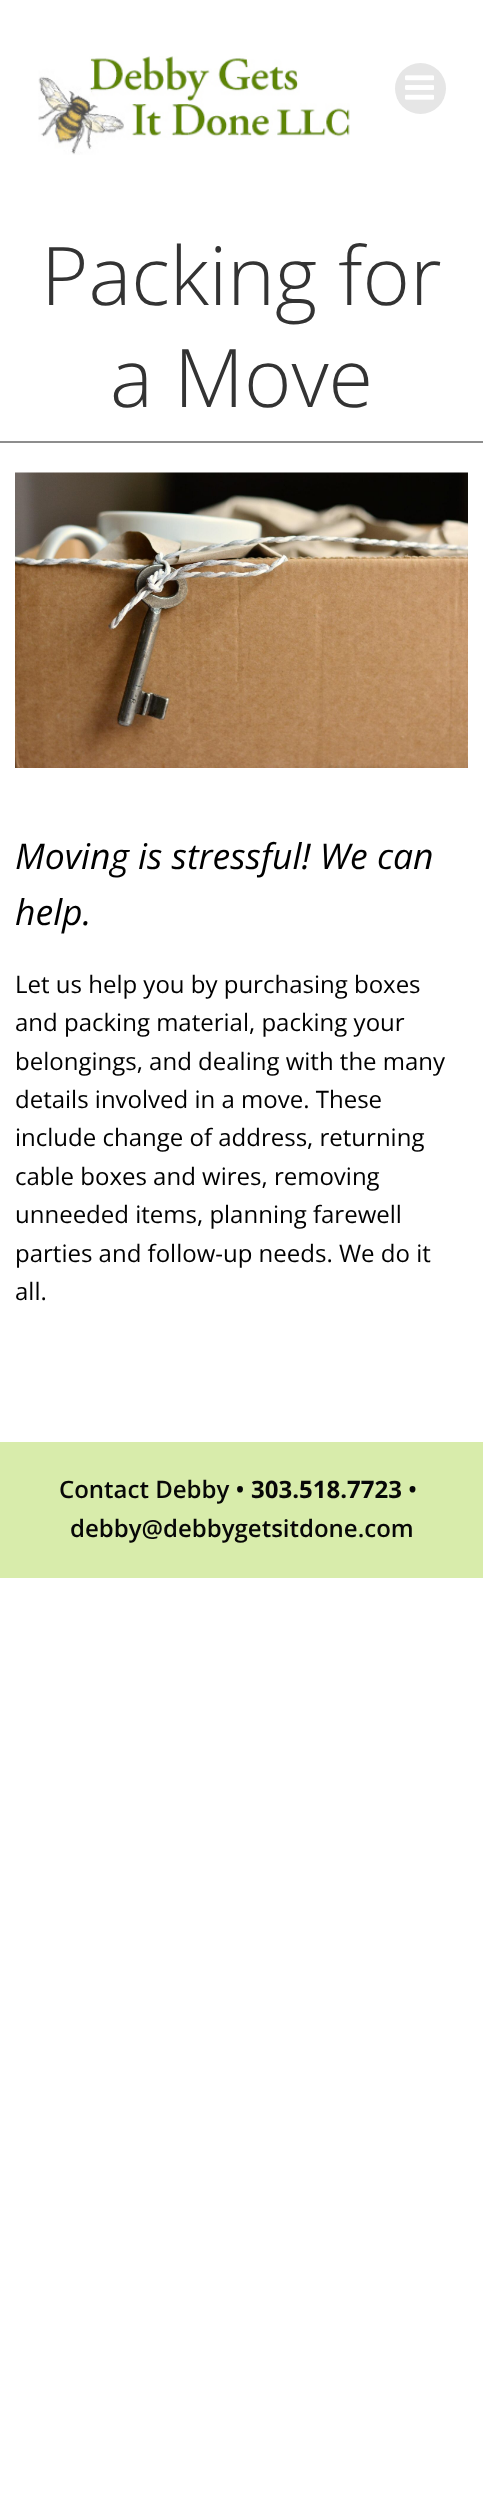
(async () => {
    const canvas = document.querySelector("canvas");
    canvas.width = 483;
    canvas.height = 2493;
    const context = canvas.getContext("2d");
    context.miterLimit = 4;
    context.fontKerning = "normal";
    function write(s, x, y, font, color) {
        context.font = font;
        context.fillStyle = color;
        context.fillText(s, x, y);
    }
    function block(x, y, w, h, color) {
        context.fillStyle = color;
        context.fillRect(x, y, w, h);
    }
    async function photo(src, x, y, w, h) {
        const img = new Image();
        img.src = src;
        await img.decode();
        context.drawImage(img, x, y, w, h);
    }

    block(0, 0, 483, 2493, "rgb(255, 255, 255)");
    await photo("media/1.png", 38, 56, 312, 99);
    context.fillStyle = "rgb(230, 230, 230)";
    context.beginPath();
    context.arc(420.5, 88.5, 25.5, 0, Math.PI * 2);
    context.fill();
    await photo("media/2.png", 405, 75, 29, 25);
    block(0, 441, 483, 2, "rgb(141, 141, 141)");
    write("Packing for", 41, 305, "300 81px Open Sans", "rgb(51, 51, 51)");
    write("a Move", 110, 407, "300 81px Open Sans", "rgb(51, 51, 51)");
    await photo("media/3.png", 15, 472, 453, 296);
    write("Moving is stressful! We can", 15, 869, "italic 35.5px Open Sans", "rgb(0, 0, 0)");
    write("help.", 15, 925, "italic 35.5px Open Sans", "rgb(0, 0, 0)");
    write("Let us help you by purchasing boxes", 15, 993, "24px Open Sans", "rgb(0, 0, 0)");
    write("and packing material, packing your", 15, 1031, "24px Open Sans", "rgb(0, 0, 0)");
    write("belongings, and dealing with the many", 15, 1070, "24px Open Sans", "rgb(0, 0, 0)");
    write("details involved in a move. These", 15, 1108, "24px Open Sans", "rgb(0, 0, 0)");
    write("include change of address, returning", 15, 1146, "24px Open Sans", "rgb(0, 0, 0)");
    write("cable boxes and wires, removing", 15, 1185, "24px Open Sans", "rgb(0, 0, 0)");
    write("unneeded items, planning farewell", 15, 1223, "24px Open Sans", "rgb(0, 0, 0)");
    write("parties and follow-up needs. We do it", 15, 1262, "24px Open Sans", "rgb(0, 0, 0)");
    write("all.", 15, 1300, "24px Open Sans", "rgb(0, 0, 0)");
    block(0, 1442, 483, 136, "rgb(216, 236, 171)");
    write("Contact Debby •", 59, 1498, "600 24px Open Sans", "rgb(7, 7, 7)");
    write("303.518.7723", 251, 1498, "bold 24px Open Sans", "rgb(7, 7, 7)");
    write("•", 408, 1498, "600 24px Open Sans", "rgb(7, 7, 7)");
    write("debby@debbygetsitdone.com", 70, 1537, "600 24px Open Sans", "rgb(7, 7, 7)");
})();
